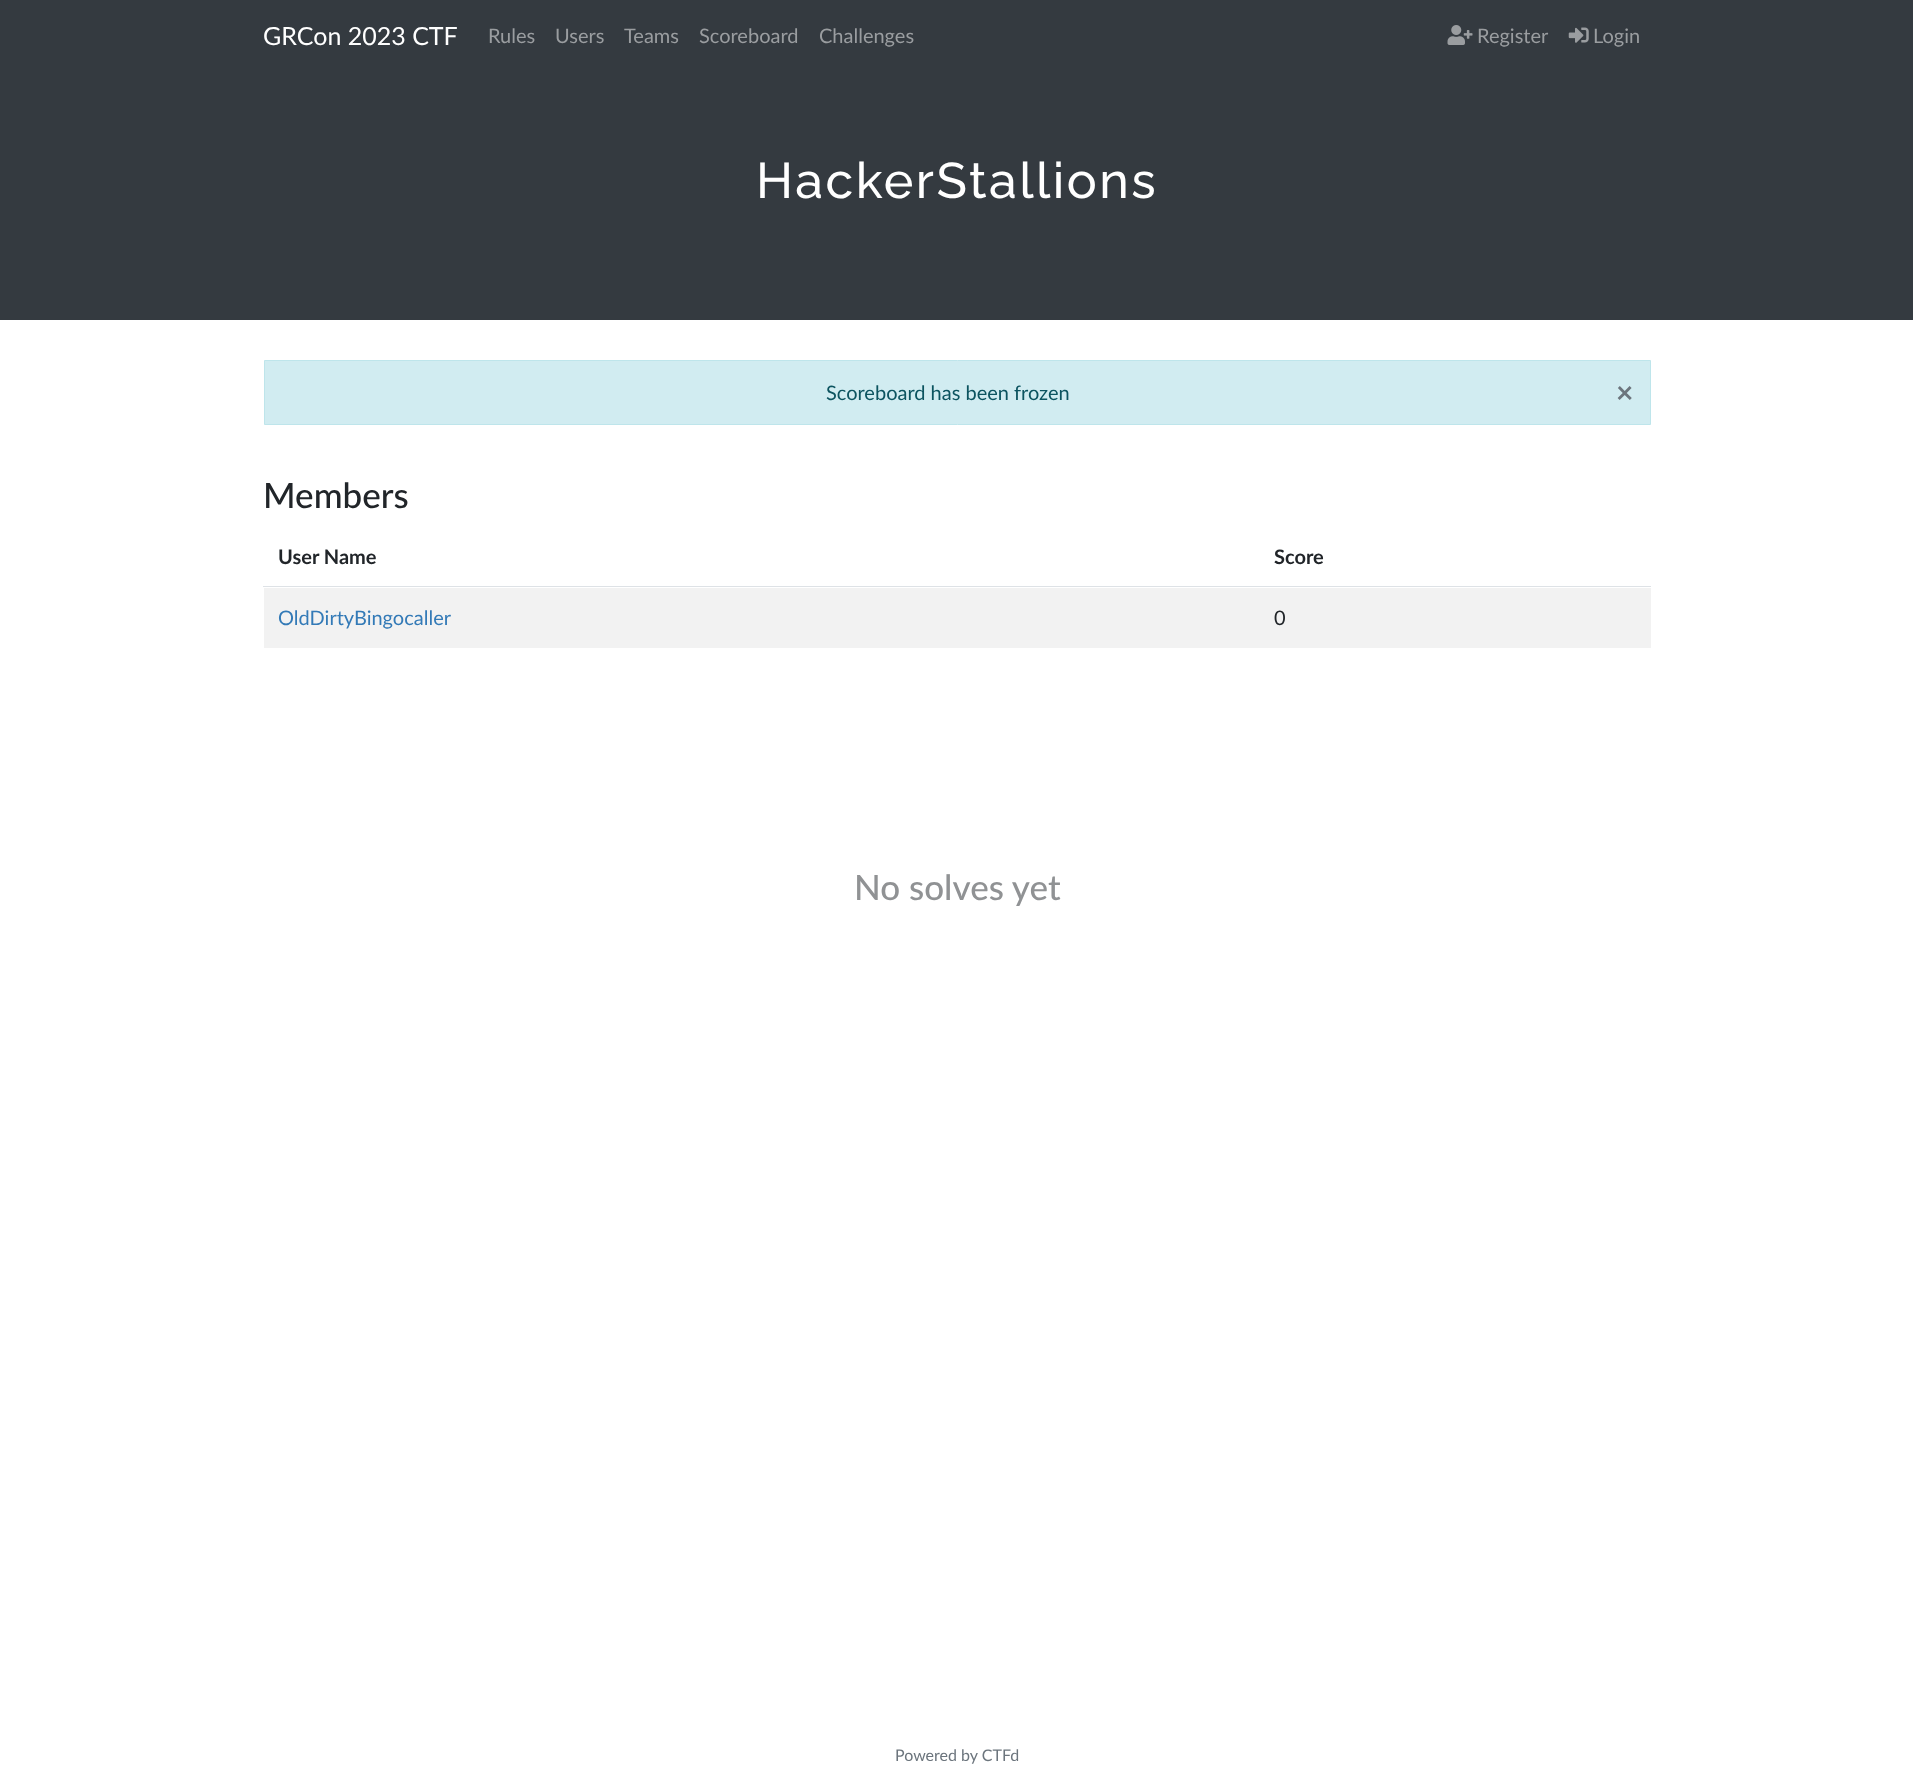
(async () => {
    const canvas = document.querySelector("canvas");
    canvas.width = 1913;
    canvas.height = 1792;
    const context = canvas.getContext("2d");
    context.miterLimit = 4;
    context.fontKerning = "normal";
    function write(s, x, y, font, color) {
        context.font = font;
        context.fillStyle = color;
        context.fillText(s, x, y);
    }
    function block(x, y, w, h, color) {
        context.fillStyle = color;
        context.fillRect(x, y, w, h);
    }
    async function photo(src, x, y, w, h) {
        const img = new Image();
        img.src = src;
        await img.decode();
        context.drawImage(img, x, y, w, h);
    }

    block(0, 0, 1913, 1792, "rgb(255, 255, 255)");
    block(0, 0, 1913, 320, "rgb(52, 58, 64)");
    write("GRCon 2023 CTF", 263, 45, "25px Lato", "rgb(255, 255, 255)");
    write("Rules", 488, 43, "20px Lato", "rgb(154, 157, 160)");
    write("Users", 555, 43, "20px Lato", "rgb(154, 157, 160)");
    write("Teams", 624, 43, "20px Lato", "rgb(154, 157, 160)");
    write("Scoreboard", 699, 43, "20px Lato", "rgb(154, 157, 160)");
    write("Challenges", 819, 43, "20px Lato", "rgb(154, 157, 160)");
    await photo("media/1.png", 1447, 25, 26, 20);
    write("Register", 1477, 43, "20px Lato", "rgb(154, 157, 160)");
    await photo("media/2.png", 1568, 27, 21, 16);
    write("Login", 1593, 43, "20px Lato", "rgb(154, 157, 160)");
    context.letterSpacing = "2.5px";
    write("HackerStallions", 756, 198, "500 50px Raleway", "rgb(255, 255, 255)");
    context.fillStyle = "rgb(209, 236, 241)";
    context.beginPath();
    context.rect(264.5, 360.5, 1386, 64);
    context.fill();
    context.strokeStyle = "rgb(190, 229, 235)";
    context.stroke();
    context.letterSpacing = "0px";
    write("Scoreboard has been frozen", 826, 400, "20px Lato", "rgb(12, 84, 96)");
    write("×", 1616, 403, "bold 30px Lato", "rgb(108, 117, 125)");
    write("Members", 263, 508, "500 35px Lato", "rgb(33, 37, 41)");
    write("User Name", 278, 564, "bold 20px Lato", "rgb(33, 37, 41)");
    write("Score", 1274, 564, "bold 20px Lato", "rgb(33, 37, 41)");
    block(264, 588, 1387, 60, "rgb(242, 242, 242)");
    write("OldDirtyBingocaller", 278, 625, "20px Lato", "rgb(51, 122, 183)");
    block(263, 586, 1388, 1, "rgb(222, 226, 230)");
    write("0", 1274, 625, "20px Lato", "rgb(33, 37, 41)");
    write("No solves yet", 854, 900, "500 35px Lato", "rgb(144, 146, 148)");
    write("Powered by CTFd", 895, 1761, "16px Lato", "rgb(108, 117, 125)");
})();
